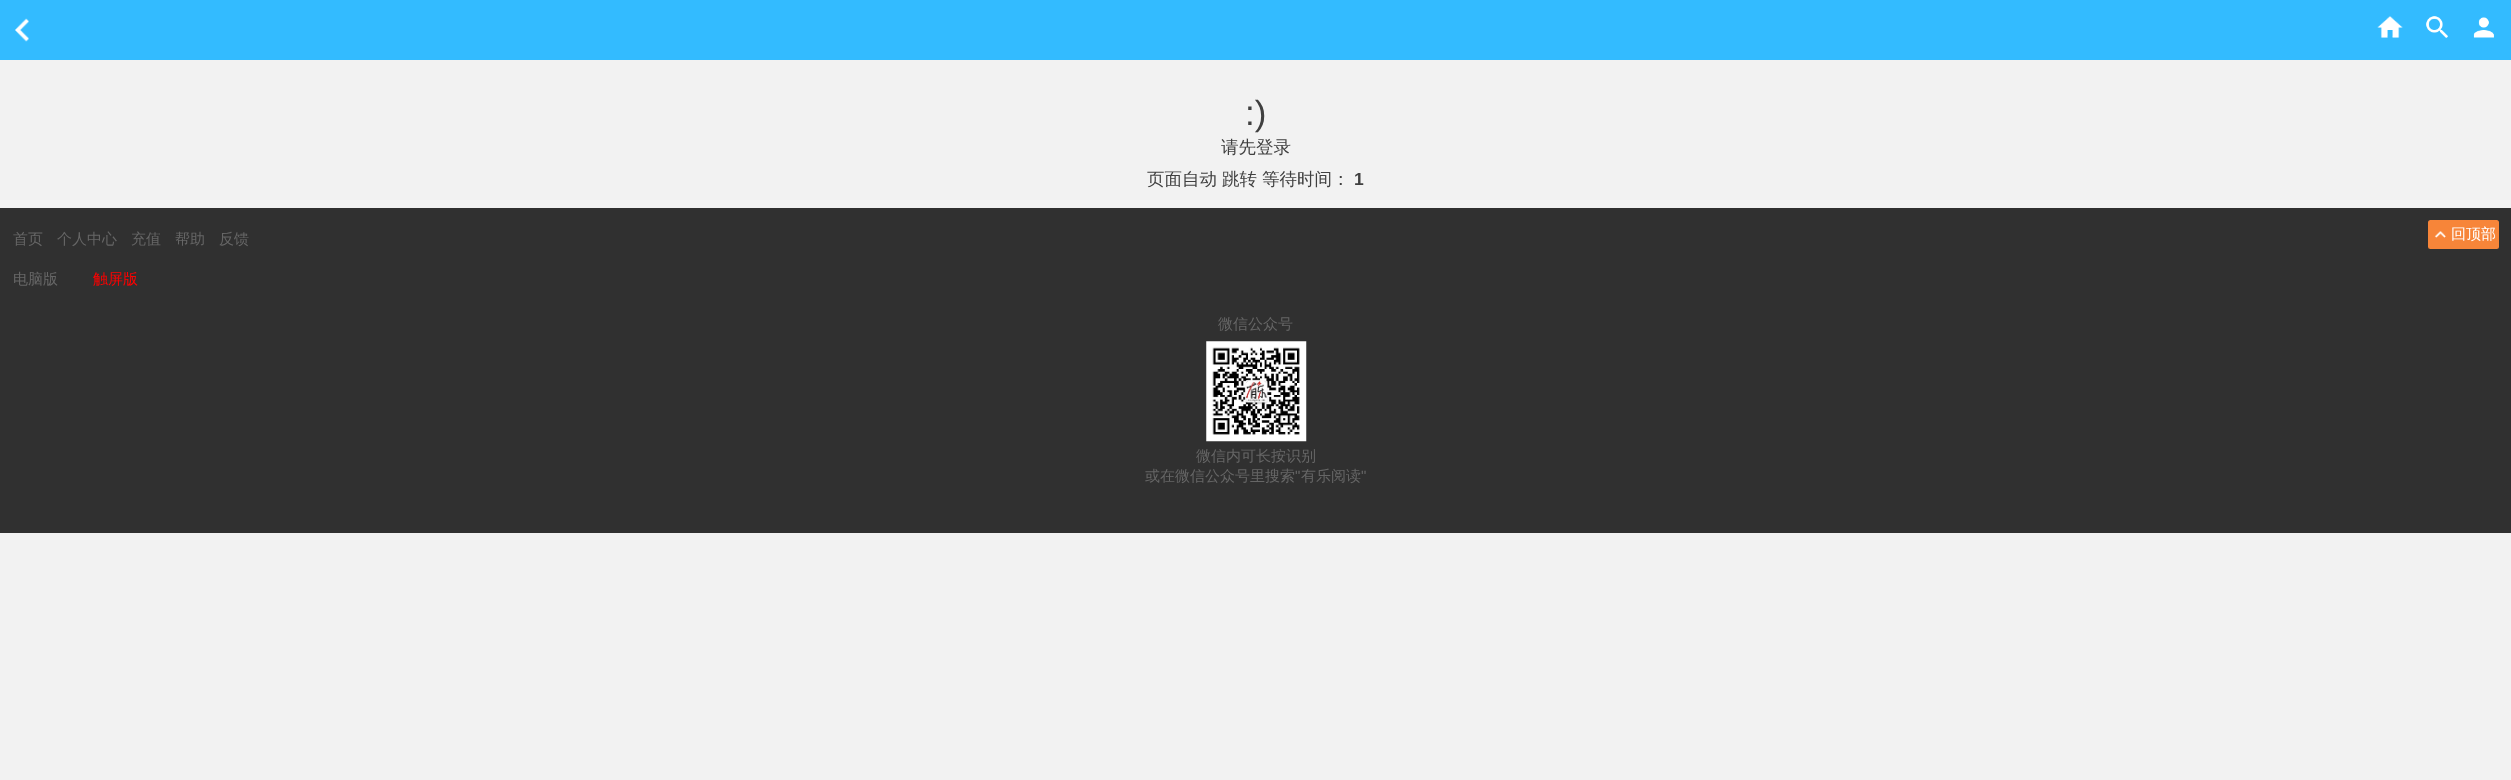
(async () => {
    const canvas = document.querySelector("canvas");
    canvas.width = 2511;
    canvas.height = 780;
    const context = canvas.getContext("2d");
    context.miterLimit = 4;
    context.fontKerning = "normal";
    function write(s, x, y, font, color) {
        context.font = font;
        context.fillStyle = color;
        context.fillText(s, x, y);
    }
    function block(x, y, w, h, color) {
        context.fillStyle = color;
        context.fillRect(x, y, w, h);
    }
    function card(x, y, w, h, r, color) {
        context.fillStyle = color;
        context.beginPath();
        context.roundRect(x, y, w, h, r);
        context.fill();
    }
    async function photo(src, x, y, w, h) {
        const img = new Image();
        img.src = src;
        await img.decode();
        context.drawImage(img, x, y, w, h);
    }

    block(0, 0, 2511, 780, "rgb(242, 242, 242)");
    block(0, 0, 2511, 60, "rgb(51, 187, 255)");
    await photo("media/1.png", 15, 18, 14, 24);
    await photo("media/2.png", 2377, 16, 26, 22);
    await photo("media/3.png", 2426, 16, 22, 22);
    await photo("media/4.png", 2473, 17, 21, 21);
    write(":)", 1245, 125, "35px Liberation Sans", "rgb(64, 64, 64)");
    write("请先登录", 1221, 153, "500 17.5px WenQuanYi Zen Hei", "rgb(64, 64, 64)");
    write("页面自动", 1147, 185, "500 17.5px WenQuanYi Zen Hei", "rgb(64, 64, 64)");
    write("跳转", 1222, 185, "500 17.5px WenQuanYi Zen Hei", "rgb(64, 64, 64)");
    write("等待时间：", 1262, 185, "500 17.5px WenQuanYi Zen Hei", "rgb(64, 64, 64)");
    write("1", 1354, 185, "bold 17.5px Liberation Sans", "rgb(64, 64, 64)");
    block(0, 208, 2511, 325, "rgb(48, 48, 48)");
    write("首页", 13, 244, "500 15px WenQuanYi Zen Hei", "rgb(102, 102, 102)");
    write("个人中心", 57, 244, "500 15px WenQuanYi Zen Hei", "rgb(102, 102, 102)");
    write("充值", 131, 244, "500 15px WenQuanYi Zen Hei", "rgb(102, 102, 102)");
    write("帮助", 175, 244, "500 15px WenQuanYi Zen Hei", "rgb(102, 102, 102)");
    write("反馈", 219, 244, "500 15px WenQuanYi Zen Hei", "rgb(102, 102, 102)");
    card(2428, 220, 71, 29, 2.5, "rgb(247, 133, 57)");
    await photo("media/5.png", 2434, 231, 12, 7);
    write("回顶部", 2451, 239, "500 15px WenQuanYi Zen Hei", "rgb(255, 255, 255)");
    write("电脑版", 13, 284, "500 15px WenQuanYi Zen Hei", "rgb(102, 102, 102)");
    write("触屏版", 93, 284, "500 15px WenQuanYi Zen Hei", "rgb(255, 0, 0)");
    write("微信公众号", 1218, 329, "500 15px WenQuanYi Zen Hei", "rgb(102, 102, 102)");
    await photo("media/6.png", 1206, 341, 101, 101);
    write("微信内可长按识别", 1196, 461, "500 15px WenQuanYi Zen Hei", "rgb(102, 102, 102)");
    write("或在微信公众号里搜索", 1145, 481, "500 15px WenQuanYi Zen Hei", "rgb(102, 102, 102)");
    write("\"", 1295, 481, "15px Liberation Sans", "rgb(102, 102, 102)");
    write("有乐阅读", 1301, 481, "500 15px WenQuanYi Zen Hei", "rgb(102, 102, 102)");
    write("\"", 1361, 481, "15px Liberation Sans", "rgb(102, 102, 102)");
})();
